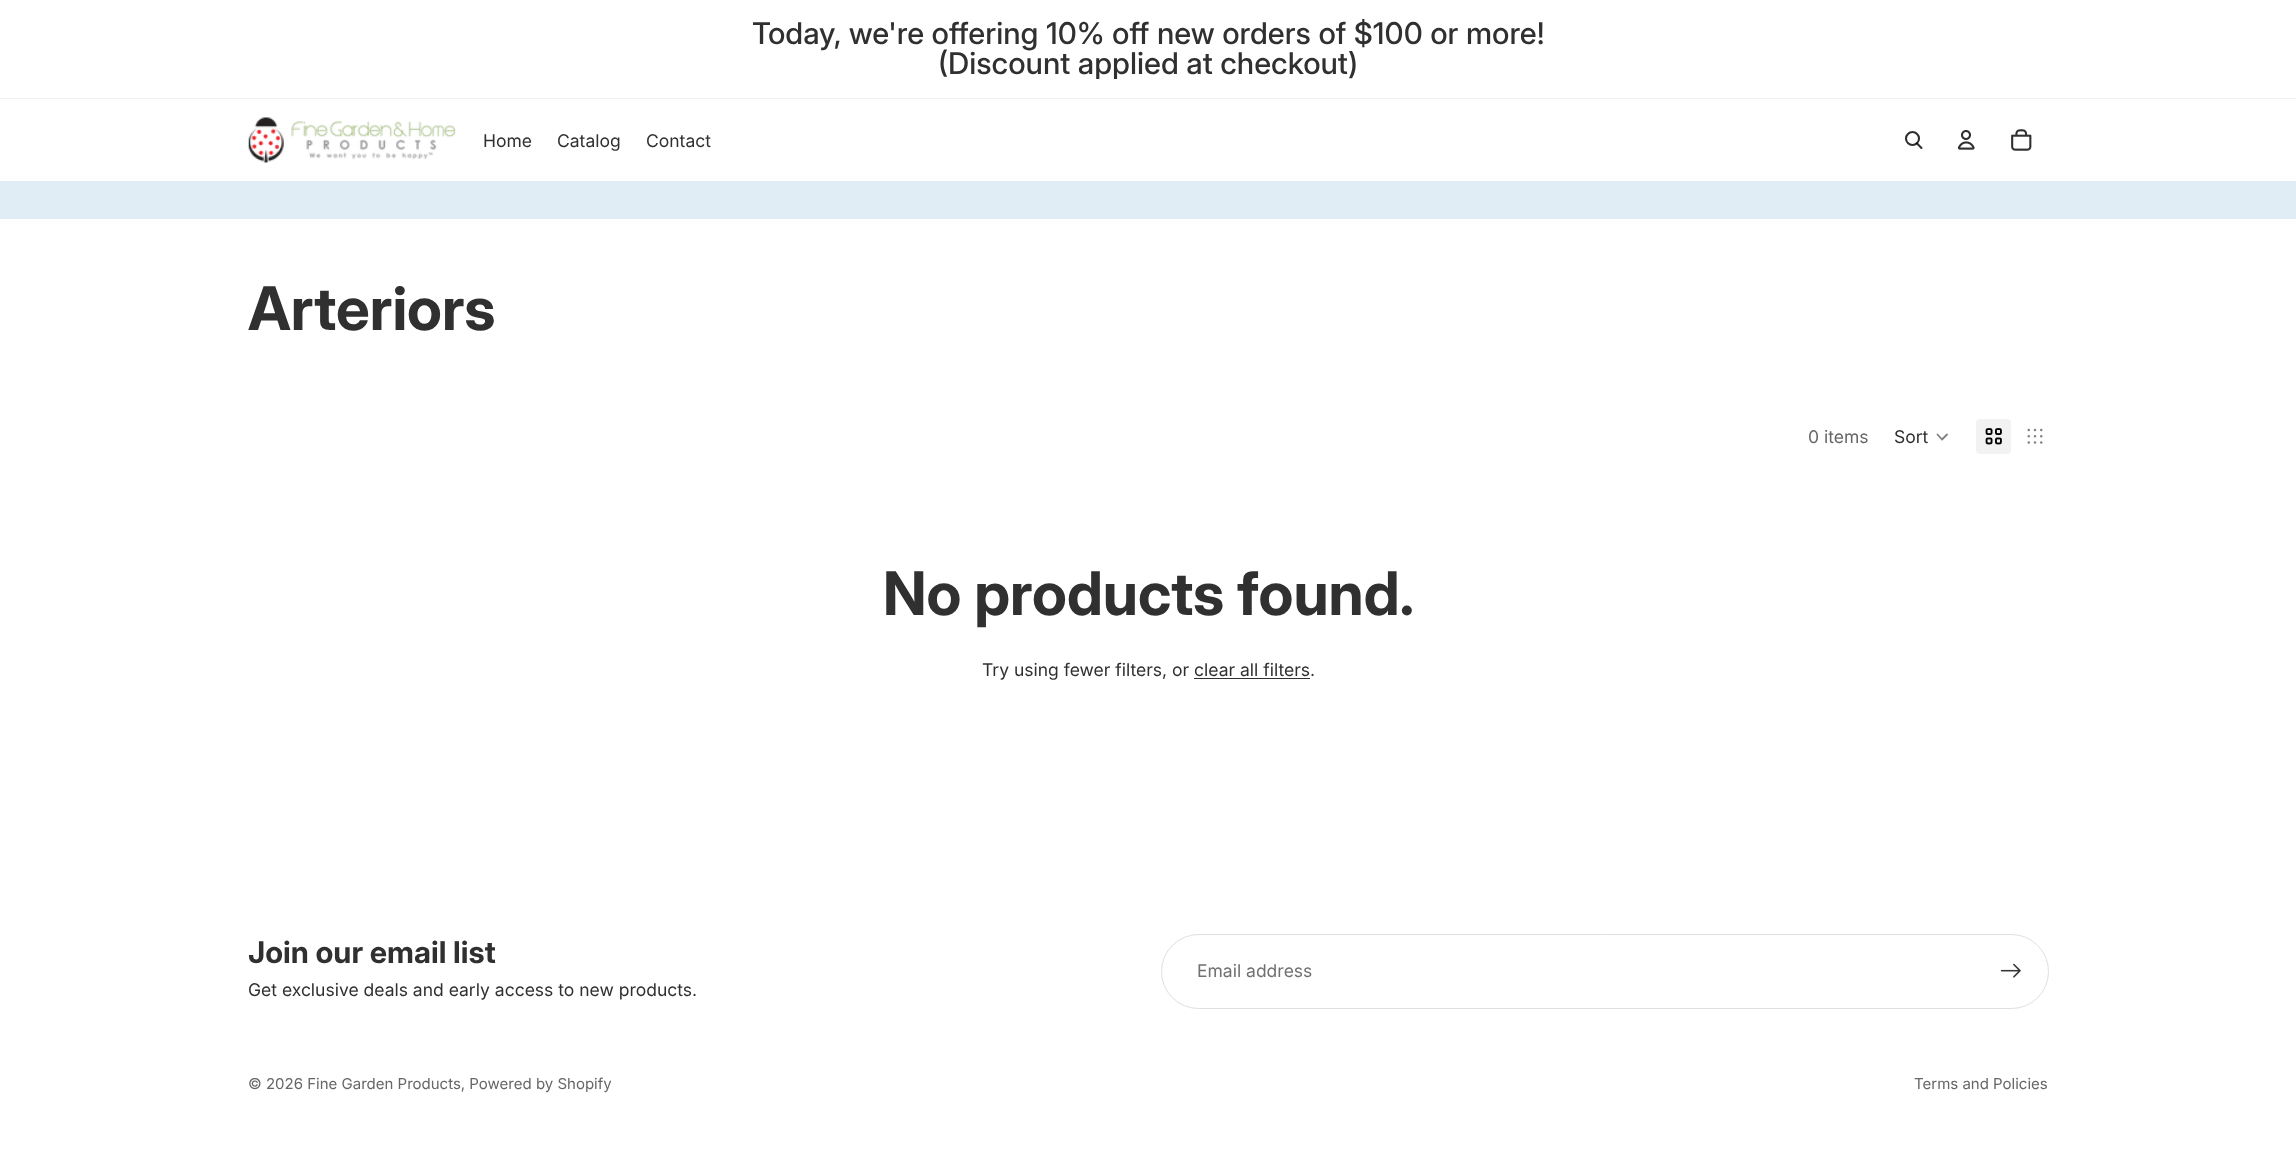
(async () => {
    const canvas = document.querySelector("canvas");
    canvas.width = 2296;
    canvas.height = 1154;
    const context = canvas.getContext("2d");
    context.miterLimit = 4;
    context.fontKerning = "normal";
    function write(s, x, y, font, color) {
        context.font = font;
        context.fillStyle = color;
        context.fillText(s, x, y);
    }
    function block(x, y, w, h, color) {
        context.fillStyle = color;
        context.fillRect(x, y, w, h);
    }
    function card(x, y, w, h, r, color) {
        context.fillStyle = color;
        context.beginPath();
        context.roundRect(x, y, w, h, r);
        context.fill();
    }
    async function photo(src, x, y, w, h) {
        const img = new Image();
        img.src = src;
        await img.decode();
        context.drawImage(img, x, y, w, h);
    }

    block(0, 0, 2296, 1154, "rgb(255, 255, 255)");
    block(0, 98, 2296, 1, "rgb(240, 240, 240)");
    write("Today, we're offering 10% off new orders of $100 or more!", 752, 44, "500 30px Inter", "rgb(48, 48, 48)");
    context.save();
    context.beginPath();
    context.rect(724, 19, 850, 60);
    context.clip();
    write("(Discount applied at checkout)", 938, 74, "500 30px Inter", "rgb(48, 48, 48)");
    context.restore();
    await photo("media/1.png", 248, 117, 208, 46);
    write("Home", 483, 147, "17.5px Inter", "rgb(48, 48, 48)");
    write("Catalog", 557, 147, "17.5px Inter", "rgb(48, 48, 48)");
    write("Contact", 646, 147, "17.5px Inter", "rgb(48, 48, 48)");
    context.beginPath();
    context.arc(1912.5, 138.5, 6.5, 0, Math.PI * 2);
    context.strokeStyle = "rgb(48, 48, 48)";
    context.lineWidth = 2.1;
    context.stroke();
    context.beginPath();
    context.moveTo(1917, 143.5);
    context.lineTo(1921.5, 148);
    context.strokeStyle = "rgba(0, 0, 0, 0.81)";
    context.lineCap = "round";
    context.lineJoin = "round";
    context.stroke();
    await photo("media/2.png", 1957, 130, 18, 20);
    await photo("media/3.png", 2011, 129, 21, 22);
    block(0, 181, 2296, 38, "rgb(225, 237, 245)");
    write("Arteriors", 248, 330, "bold 60px Inter", "rgb(48, 48, 48)");
    write("0 items", 1808, 443, "17.5px Inter", "rgb(102, 102, 102)");
    write("Sort", 1894, 443, "17.5px Inter", "rgb(48, 48, 48)");
    context.beginPath();
    context.moveTo(1947, 434.5);
    context.lineTo(1942, 439.5);
    context.lineTo(1937.5, 434.5);
    context.strokeStyle = "rgb(128, 128, 128)";
    context.lineWidth = 1.8;
    context.stroke();
    card(1976, 419, 35, 35, 4, "rgb(242, 242, 242)");
    await photo("media/4.png", 1985, 428, 17, 17);
    await photo("media/5.png", 2027, 428, 16, 16);
    write("No products found.", 883, 615, "bold 60px Inter", "rgb(48, 48, 48)");
    write("Try using fewer filters, or clear all filters.", 982, 676, "17.5px Inter", "rgb(48, 48, 48)");
    block(1194, 678, 116, 1, "rgb(48, 48, 48)");
    write("Join our email list", 248, 963, "bold 30px 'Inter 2'", "rgb(48, 48, 48)");
    write("Get exclusive deals and early access to new products.", 248, 996, "17.5px Inter", "rgb(48, 48, 48)");
    context.beginPath();
    context.roundRect(1161.5, 934.5, 887, 74, 37);
    context.strokeStyle = "rgb(223, 223, 223)";
    context.lineWidth = 1;
    context.lineJoin = "miter";
    context.stroke();
    write("Email address", 1197, 977, "17.5px Inter", "rgb(112, 112, 112)");
    await photo("media/6.png", 2000, 963, 21, 15);
    write("© 2026 Fine Garden Products, Powered by Shopify", 248, 1089, "15px Inter", "rgb(102, 102, 102)");
    write("Terms and Policies", 1914, 1089, "15px Inter", "rgb(102, 102, 102)");
})();
